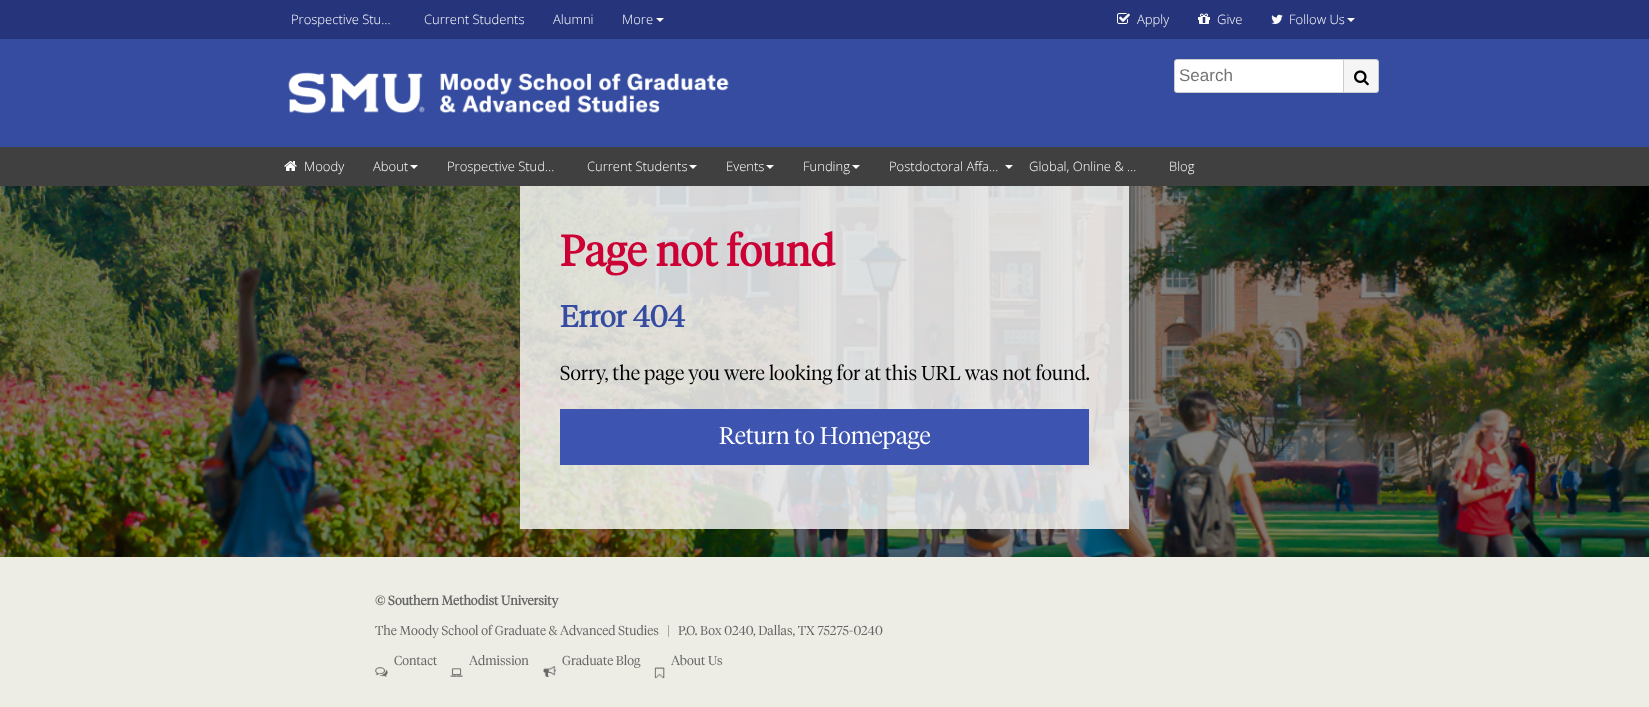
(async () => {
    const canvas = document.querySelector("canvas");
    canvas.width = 1649;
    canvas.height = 707;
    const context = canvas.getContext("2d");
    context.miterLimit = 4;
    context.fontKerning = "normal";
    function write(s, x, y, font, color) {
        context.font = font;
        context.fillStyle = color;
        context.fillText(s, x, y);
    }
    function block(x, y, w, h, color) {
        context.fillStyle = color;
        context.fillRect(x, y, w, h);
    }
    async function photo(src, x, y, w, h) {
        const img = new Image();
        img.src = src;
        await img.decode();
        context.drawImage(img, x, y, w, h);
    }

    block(0, 0, 1649, 707, "rgb(255, 255, 255)");
    block(0, 39, 1649, 108, "rgb(53, 76, 161)");
    block(0, 0, 1649, 39, "rgb(38, 53, 123)");
    write("Prospective Stu…", 291, 24, "300 13px Open Sans", "rgb(255, 255, 255)");
    write("Current Students", 424, 24, "300 13px Open Sans", "rgb(255, 255, 255)");
    write("Alumni", 553, 24, "300 13px Open Sans", "rgb(255, 255, 255)");
    write("More", 622, 24, "300 13px Open Sans", "rgb(255, 255, 255)");
    context.beginPath();
    context.moveTo(656, 18);
    context.lineTo(664, 18);
    context.lineTo(660, 22);
    context.closePath();
    context.fill();
    await photo("media/1.png", 1117, 13, 13, 11);
    write("Apply", 1137, 24, "300 13px Open Sans", "rgb(255, 255, 255)");
    await photo("media/2.png", 1198, 13, 12, 11);
    write("Give", 1217, 24, "300 13px Open Sans", "rgb(255, 255, 255)");
    await photo("media/3.png", 1271, 14, 12, 10);
    write("Follow Us", 1289, 24, "300 13px Open Sans", "rgb(255, 255, 255)");
    context.beginPath();
    context.moveTo(1347, 18);
    context.lineTo(1355, 18);
    context.lineTo(1351, 22);
    context.closePath();
    context.fill();
    await photo("media/4.png", 288, 72, 441, 42);
    context.beginPath();
    context.roundRect(1174.5, 59.5, 172, 33, [2.5, 0, 0, 2.5]);
    context.fill();
    context.strokeStyle = "rgb(204, 204, 204)";
    context.stroke();
    write("Search", 1179, 81, "17px Liberation Sans", "rgb(117, 117, 117)");
    context.fillStyle = "rgb(245, 245, 245)";
    context.beginPath();
    context.roundRect(1343.5, 59.5, 35, 33, [0, 2.5, 2.5, 0]);
    context.fill();
    context.stroke();
    await photo("media/5.png", 1354, 70, 15, 16);
    block(0, 147, 1649, 39, "rgb(64, 64, 65)");
    await photo("media/6.png", 284, 161, 13, 10);
    write("Moody", 304, 171, "300 13px Open Sans", "rgb(255, 255, 255)");
    write("About", 373, 171, "300 13px Open Sans", "rgb(255, 255, 255)");
    context.beginPath();
    context.moveTo(410, 165);
    context.lineTo(418, 165);
    context.lineTo(414, 169);
    context.closePath();
    context.fill();
    write("Prospective Stud…", 447, 171, "300 13px Open Sans", "rgb(255, 255, 255)");
    write("Current Students", 587, 171, "300 13px Open Sans", "rgb(255, 255, 255)");
    context.beginPath();
    context.moveTo(689, 165);
    context.lineTo(697, 165);
    context.lineTo(693, 169);
    context.closePath();
    context.fill();
    write("Events", 726, 171, "300 13px Open Sans", "rgb(255, 255, 255)");
    context.beginPath();
    context.moveTo(766, 165);
    context.lineTo(774, 165);
    context.lineTo(770, 169);
    context.closePath();
    context.fill();
    write("Funding", 803, 171, "300 13px Open Sans", "rgb(255, 255, 255)");
    context.beginPath();
    context.moveTo(852, 165);
    context.lineTo(860, 165);
    context.lineTo(856, 169);
    context.closePath();
    context.fill();
    write("Postdoctoral Affa…", 889, 171, "300 13px Open Sans", "rgb(255, 255, 255)");
    context.beginPath();
    context.moveTo(1005, 165);
    context.lineTo(1013, 165);
    context.lineTo(1009, 169);
    context.closePath();
    context.fill();
    write("Global, Online & …", 1029, 171, "300 13px Open Sans", "rgb(255, 255, 255)");
    write("Blog", 1169, 171, "300 13px Open Sans", "rgb(255, 255, 255)");
    await photo("media/7.png", 0, 186, 1649, 371);
    block(520, 186, 609, 343, "rgba(255, 255, 255, 0.8)");
    write("Page not found", 560, 266, "bold 43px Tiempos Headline", "rgb(204, 0, 53)");
    write("Error 404", 560, 327, "bold 30px Tiempos Headline", "rgb(53, 76, 161)");
    write("Sorry, the page you were looking for at this URL was not found.", 560, 380, "300 20px Tiempos Headline", "rgb(0, 0, 0)");
    block(560, 409, 529, 56, "rgb(61, 84, 176)");
    write("Return to Homepage", 719, 444, "300 24px Tiempos Headline", "rgb(255, 255, 255)");
    block(0, 557, 1649, 150, "rgb(237, 237, 229)");
    write("© Southern Methodist University", 375, 605, "bold 13px Tiempos Headline", "rgb(102, 102, 102)");
    write("The Moody School of Graduate & Advanced Studies   |   P.O. Box 0240, Dallas, TX 75275-0240", 375, 635, "300 13px Tiempos Headline", "rgb(102, 102, 102)");
    write("Contact", 394, 665, "300 13px Tiempos Headline", "rgb(102, 102, 102)");
    write("Admission", 469, 665, "300 13px Tiempos Headline", "rgb(102, 102, 102)");
    write("Graduate Blog", 562, 665, "300 13px Tiempos Headline", "rgb(102, 102, 102)");
    write("About Us", 671, 665, "300 13px Tiempos Headline", "rgb(102, 102, 102)");
    await photo("media/8.png", 375, 667, 13, 10);
    await photo("media/9.png", 450, 668, 13, 9);
    await photo("media/10.png", 543, 666, 13, 11);
    await photo("media/11.png", 654, 667, 11, 12);
})();
